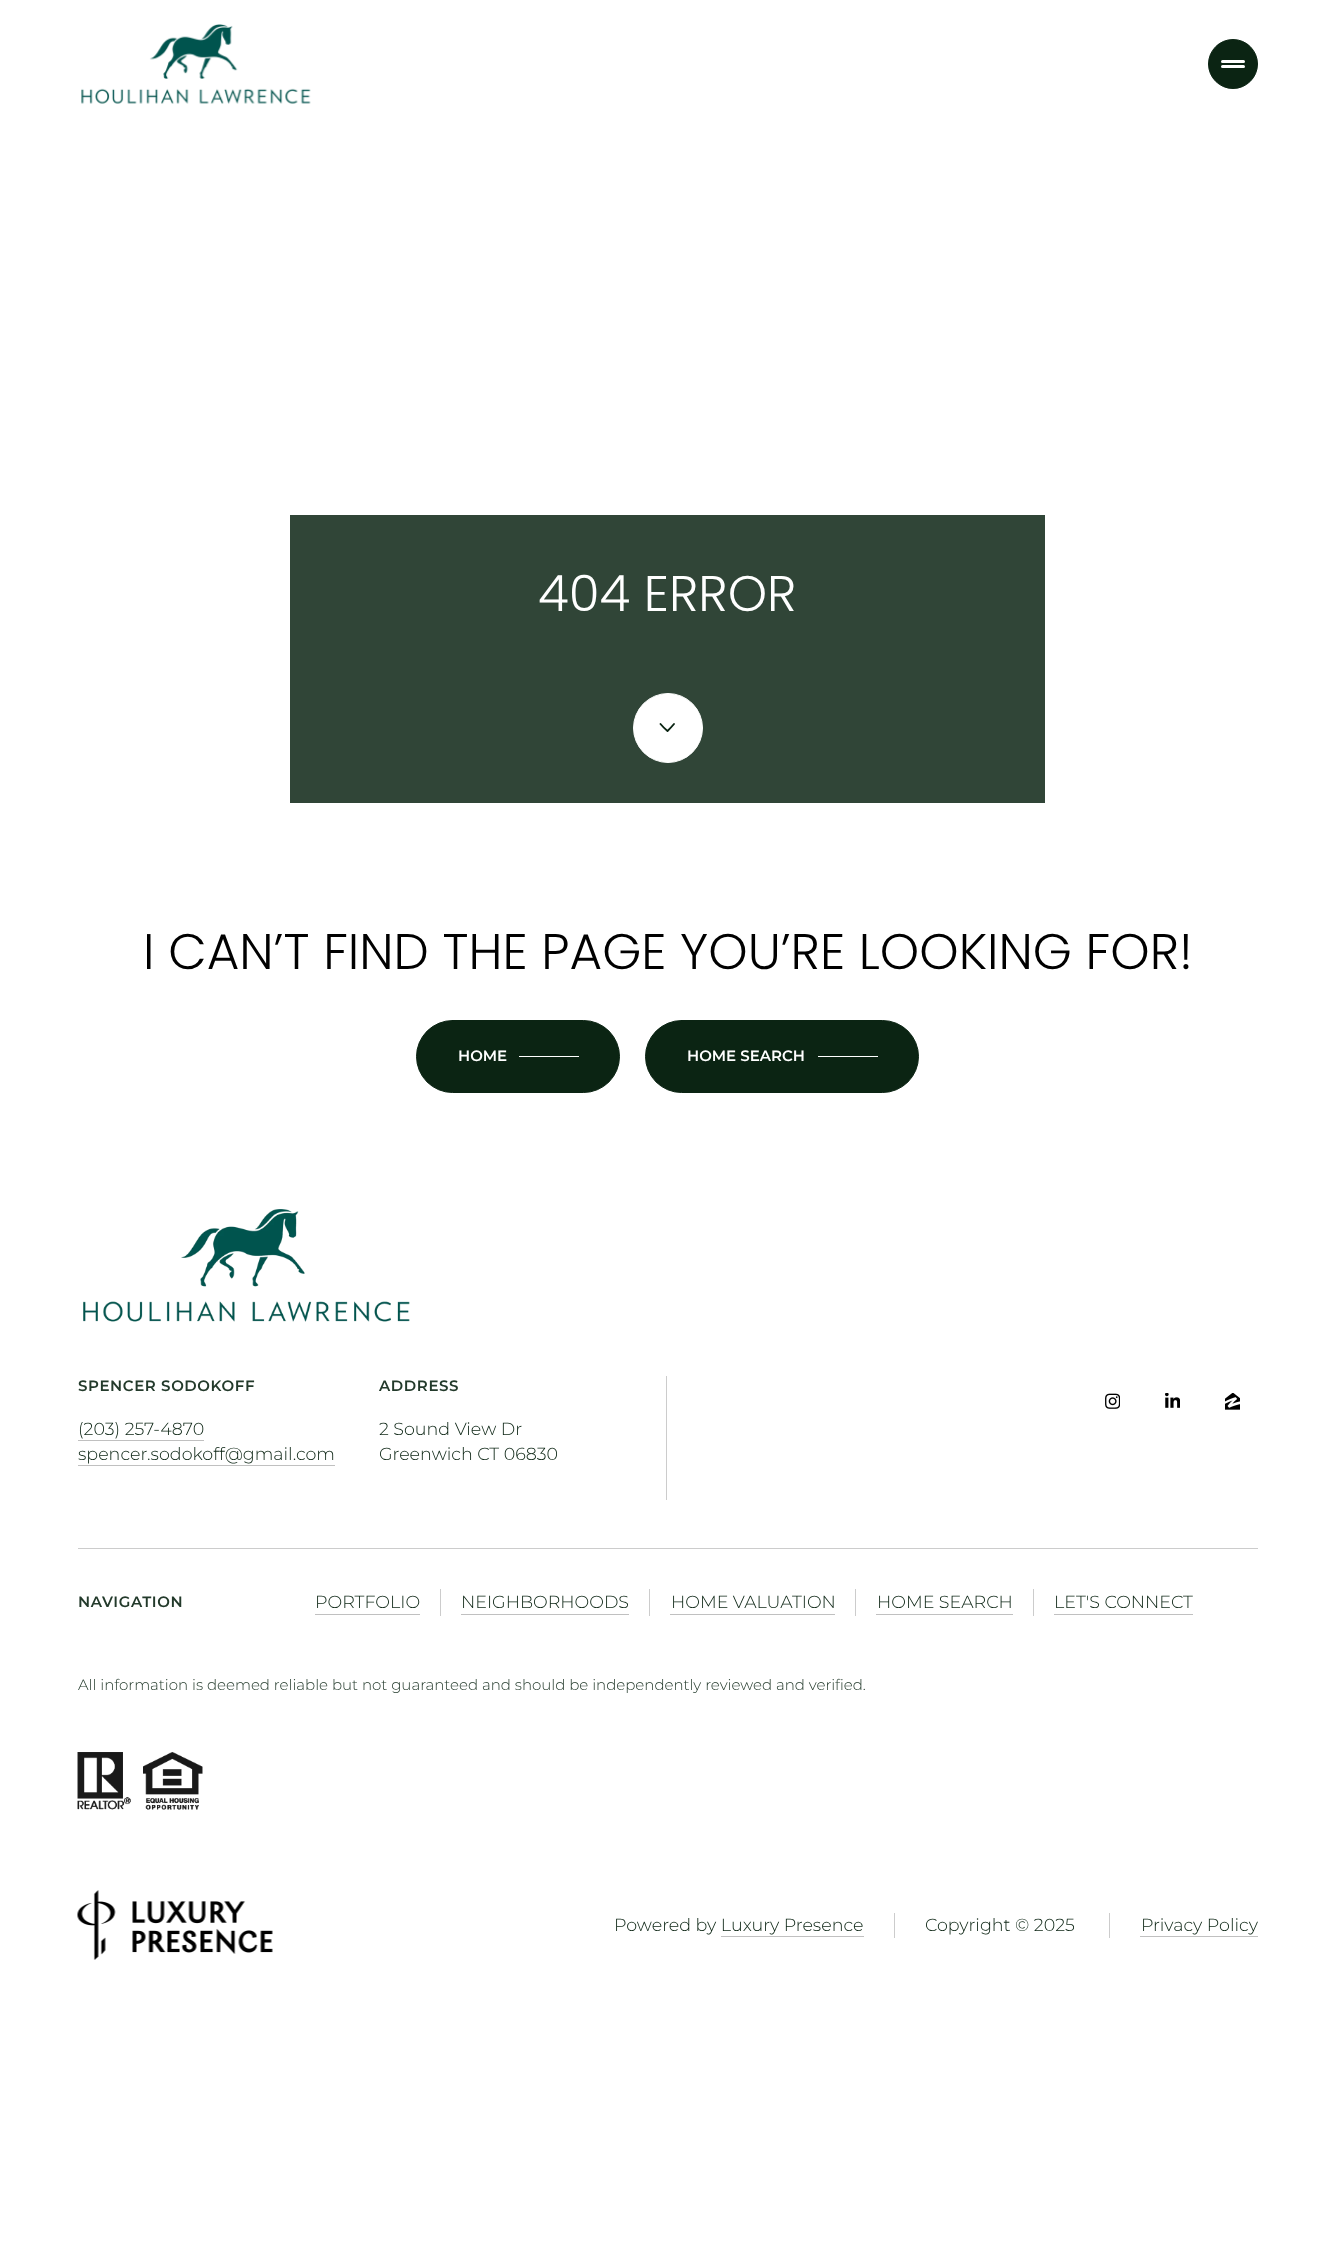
(async () => {
    const canvas = document.querySelector("canvas");
    canvas.width = 1335;
    canvas.height = 2244;
    const context = canvas.getContext("2d");
    context.miterLimit = 4;
    context.fontKerning = "normal";
    function write(s, x, y, font, color) {
        context.font = font;
        context.fillStyle = color;
        context.fillText(s, x, y);
    }
    function block(x, y, w, h, color) {
        context.fillStyle = color;
        context.fillRect(x, y, w, h);
    }
    function card(x, y, w, h, r, color) {
        context.fillStyle = color;
        context.beginPath();
        context.roundRect(x, y, w, h, r);
        context.fill();
    }
    async function photo(src, x, y, w, h) {
        const img = new Image();
        img.src = src;
        await img.decode();
        context.drawImage(img, x, y, w, h);
    }

    block(0, 0, 1335, 2244, "rgb(255, 255, 255)");
    await photo("media/1.png", 81, 24, 230, 80);
    context.fillStyle = "rgb(11, 36, 19)";
    context.beginPath();
    context.arc(1233, 64, 24.5, 0, Math.PI * 2);
    context.fill();
    context.strokeStyle = "rgb(11, 36, 19)";
    context.stroke();
    card(1221, 60, 24, 3, 1.5, "rgb(255, 255, 255)");
    card(1221, 65, 24, 3, 1.5, "rgb(255, 255, 255)");
    block(290, 515, 755, 288, "rgb(48, 69, 55)");
    write("404 ERROR", 538, 611, "300 50px Poppins", "rgb(255, 255, 255)");
    context.beginPath();
    context.arc(668, 728, 34.5, 0, Math.PI * 2);
    context.fill();
    context.strokeStyle = "rgb(255, 255, 255)";
    context.stroke();
    context.beginPath();
    context.moveTo(660.5, 724);
    context.bezierCurveTo(663, 727, 664.5, 728.5, 667.5, 731);
    context.bezierCurveTo(670, 728.5, 671.5, 727, 674, 724);
    context.strokeStyle = "rgb(11, 36, 19)";
    context.lineWidth = 1.9;
    context.lineCap = "round";
    context.lineJoin = "round";
    context.stroke();
    write("I CAN’T FIND THE PAGE YOU’RE LOOKING FOR!", 143, 969, "300 50px Poppins", "rgb(0, 0, 0)");
    context.fillStyle = "rgb(11, 36, 19)";
    context.beginPath();
    context.roundRect(416.5, 1020.5, 203, 72, 36);
    context.fill();
    context.lineWidth = 1;
    context.lineJoin = "miter";
    context.stroke();
    write("HOME", 458, 1061, "600 15px Montserrat", "rgb(255, 255, 255)");
    block(519, 1056, 60, 1, "rgb(255, 255, 255)");
    context.fillStyle = "rgb(11, 36, 19)";
    context.beginPath();
    context.roundRect(645.5, 1020.5, 273, 72, 36);
    context.fill();
    context.stroke();
    write("HOME SEARCH", 687, 1061, "600 15px Montserrat", "rgb(255, 255, 255)");
    block(818, 1056, 60, 1, "rgb(255, 255, 255)");
    await photo("media/2.png", 83, 1209, 327, 113);
    block(78, 1548, 1180, 1, "rgb(204, 204, 204)");
    block(666, 1376, 1, 124, "rgb(204, 204, 204)");
    context.letterSpacing = "0.6px";
    write("SPENCER SODOKOFF", 78, 1391, "600 15px Montserrat", "rgb(35, 58, 43)");
    context.letterSpacing = "0px";
    write("(203) 257-4870", 78, 1435, "300 17.5px Montserrat", "rgb(11, 36, 19)");
    block(78, 1440, 126, 1, "rgb(192, 192, 192)");
    write("spencer.sodokoff@gmail.com", 78, 1460, "300 17.5px Montserrat", "rgb(11, 36, 19)");
    block(78, 1465, 257, 1, "rgb(192, 192, 192)");
    context.letterSpacing = "0.6px";
    write("ADDRESS", 379, 1391, "600 15px Montserrat", "rgb(35, 58, 43)");
    context.letterSpacing = "0px";
    write("2 Sound View Dr", 379, 1435, "300 17.5px Montserrat", "rgb(11, 36, 19)");
    write("Greenwich CT 06830", 379, 1460, "300 17.5px Montserrat", "rgb(11, 36, 19)");
    await photo("media/3.png", 1105, 1393, 15, 16);
    await photo("media/4.png", 1165, 1393, 15, 15);
    await photo("media/5.png", 1225, 1393, 15, 17);
    context.letterSpacing = "0.6px";
    write("NAVIGATION", 78, 1607, "600 15px Montserrat", "rgb(35, 58, 43)");
    context.letterSpacing = "0px";
    write("PORTFOLIO", 315, 1608, "300 17.5px Montserrat", "rgb(11, 36, 19)");
    block(315, 1614, 105, 1, "rgb(192, 192, 192)");
    block(440, 1589, 1, 27, "rgb(204, 204, 204)");
    write("NEIGHBORHOODS", 461, 1608, "300 17.5px Montserrat", "rgb(11, 36, 19)");
    block(461, 1614, 168, 1, "rgb(192, 192, 192)");
    block(649, 1589, 1, 27, "rgb(204, 204, 204)");
    write("HOME VALUATION", 671, 1608, "300 17.5px Montserrat", "rgb(11, 36, 19)");
    block(670, 1614, 165, 1, "rgb(192, 192, 192)");
    block(855, 1589, 1, 27, "rgb(204, 204, 204)");
    write("HOME SEARCH", 877, 1608, "300 17.5px Montserrat", "rgb(11, 36, 19)");
    block(876, 1614, 137, 1, "rgb(192, 192, 192)");
    block(1033, 1589, 1, 27, "rgb(204, 204, 204)");
    write("LET'S CONNECT", 1054, 1608, "300 17.5px Montserrat", "rgb(11, 36, 19)");
    block(1054, 1614, 139, 1, "rgb(192, 192, 192)");
    write("All information is deemed reliable but not guaranteed and should be independently reviewed and verified.", 78, 1690, "300 15px Montserrat", "rgb(35, 58, 43)");
    await photo("media/6.png", 77, 1752, 126, 58);
    await photo("media/7.png", 77, 1890, 196, 70);
    write("Powered by Luxury Presence", 614, 1931, "300 17.5px Montserrat", "rgb(11, 36, 19)");
    block(721, 1936, 143, 1, "rgb(192, 192, 192)");
    block(894, 1913, 1, 25, "rgb(204, 204, 204)");
    write("Copyright © 2025", 925, 1931, "300 17.5px Montserrat", "rgb(11, 36, 19)");
    block(1109, 1913, 1, 25, "rgb(204, 204, 204)");
    write("Privacy Policy", 1141, 1931, "300 17.5px Montserrat", "rgb(11, 36, 19)");
    block(1140, 1936, 118, 1, "rgb(192, 192, 192)");
})();
